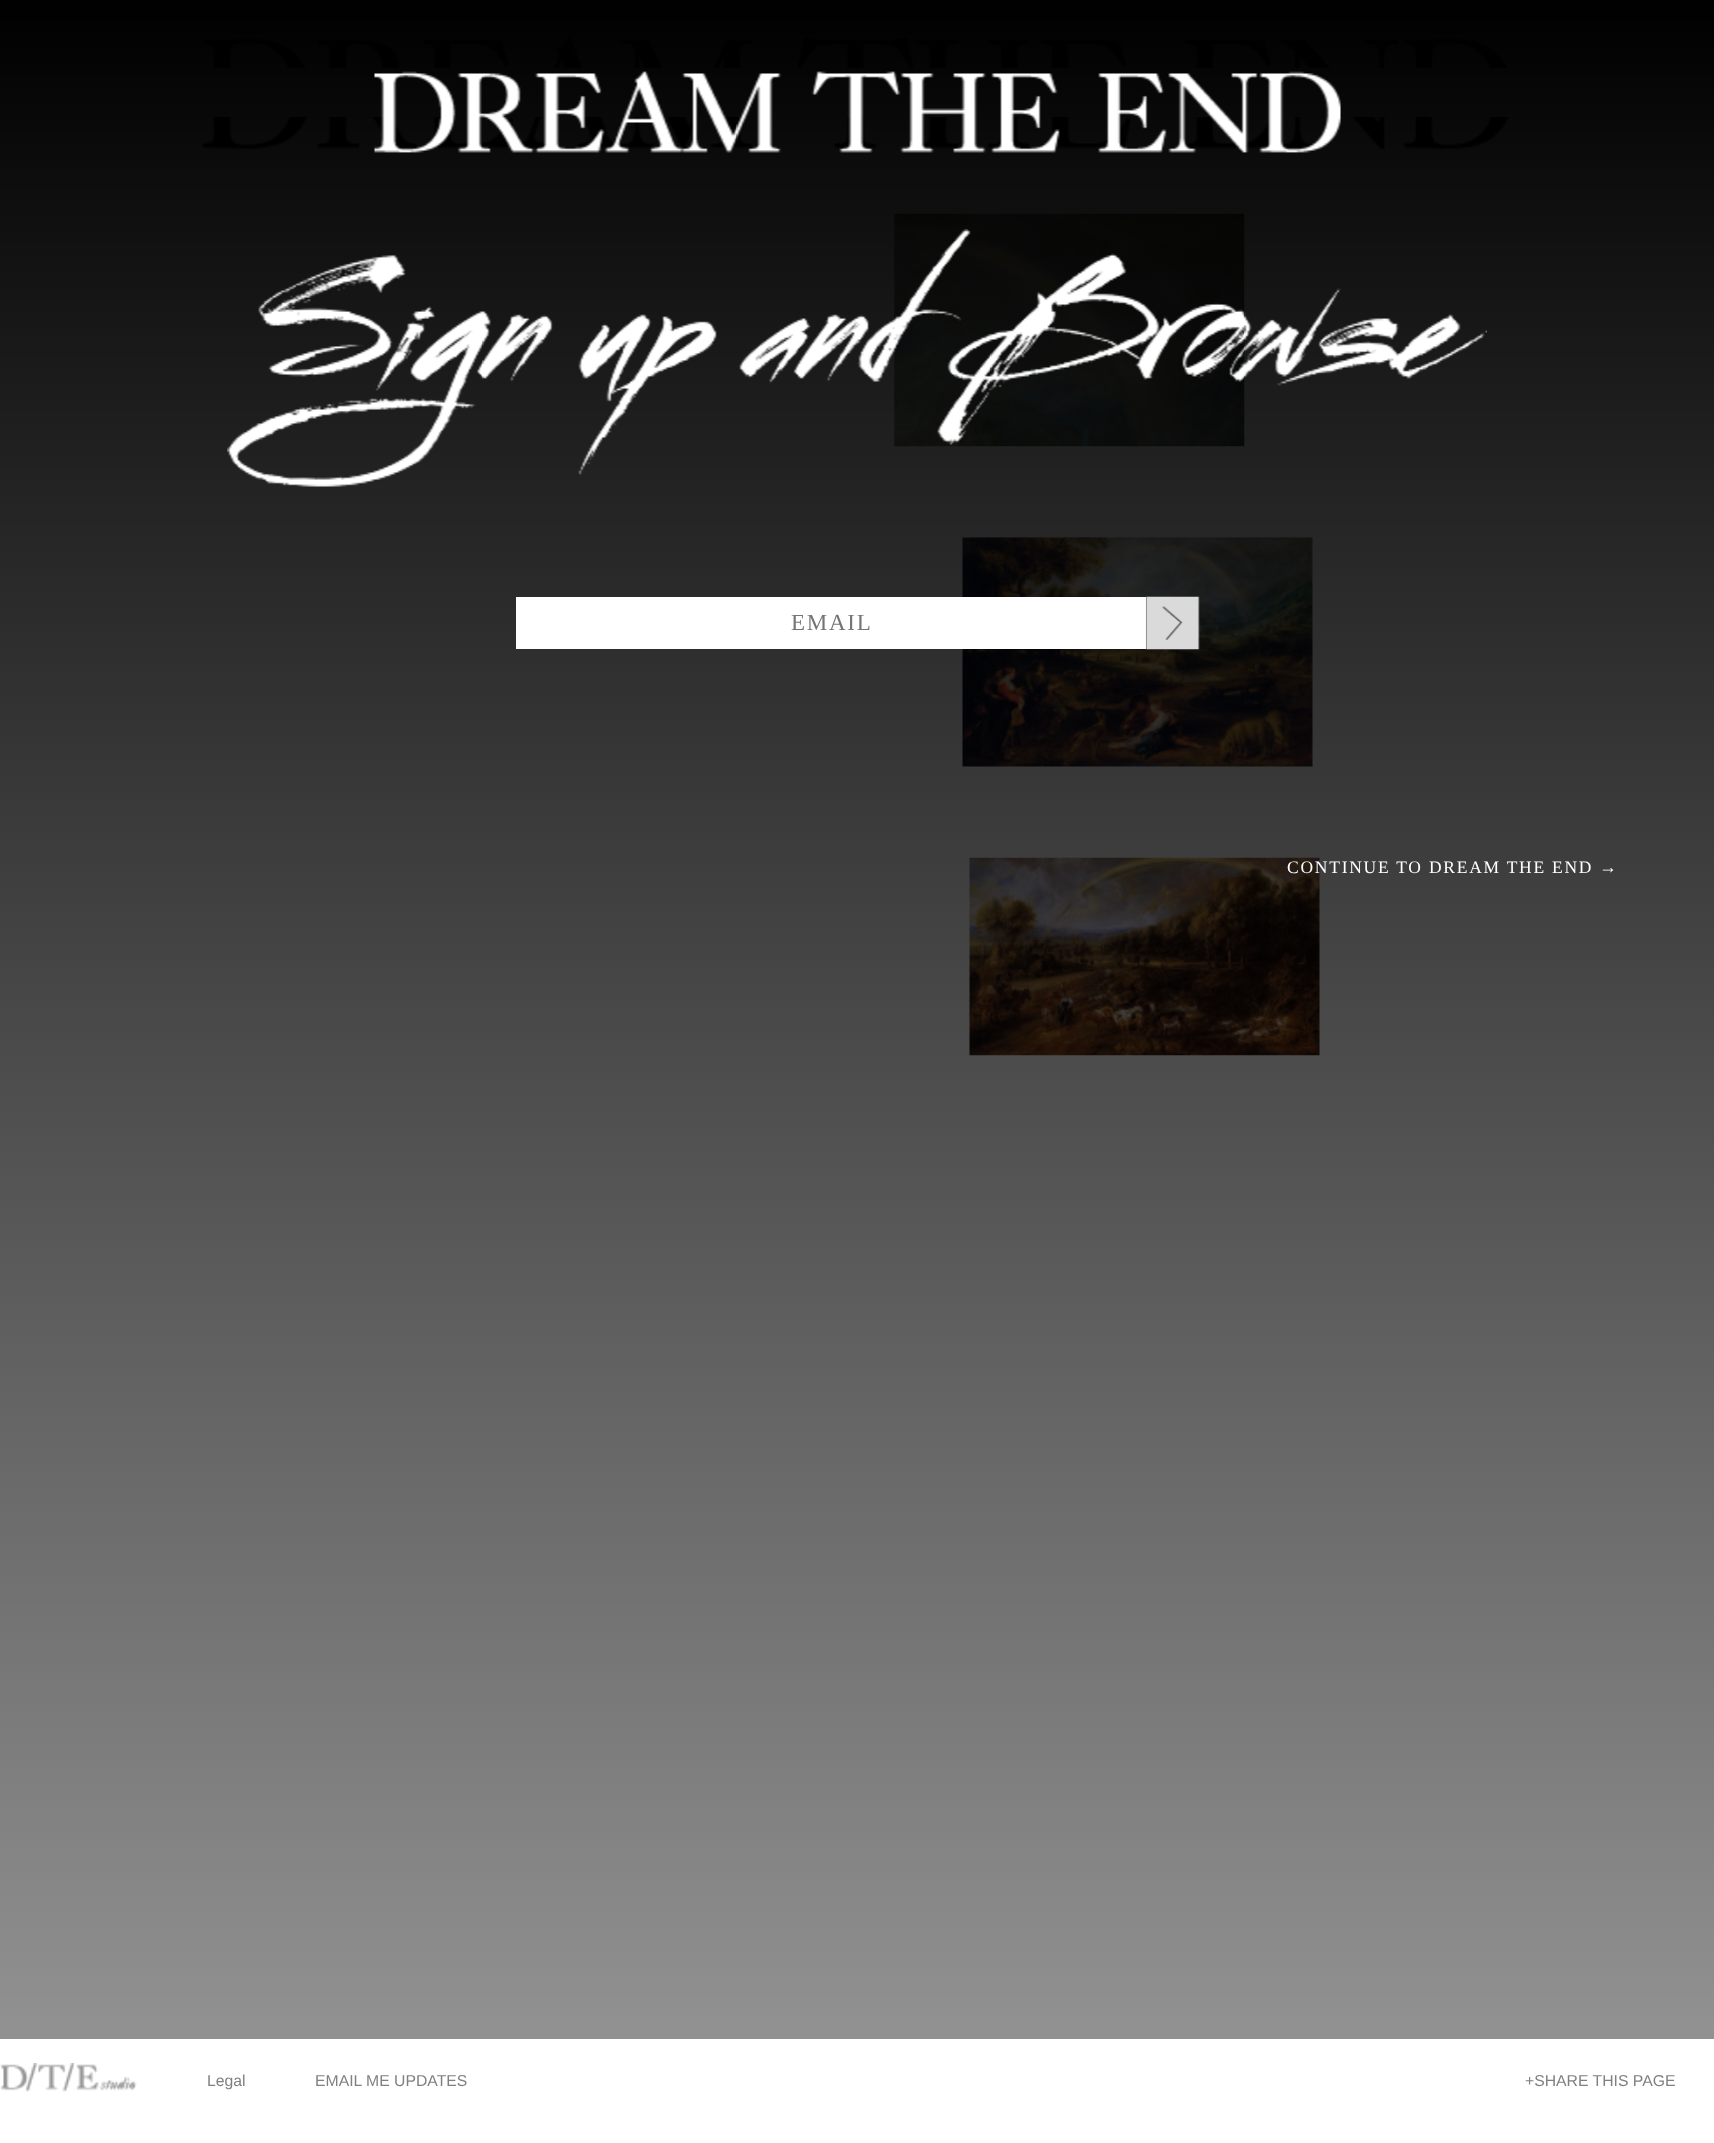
(async () => {
    const canvas = document.querySelector("canvas");
    canvas.width = 1714;
    canvas.height = 2143;
    const context = canvas.getContext("2d");
    context.miterLimit = 4;
    context.fontKerning = "normal";
    function write(s, x, y, font, color) {
        context.font = font;
        context.fillStyle = color;
        context.fillText(s, x, y);
    }
    function block(x, y, w, h, color) {
        context.fillStyle = color;
        context.fillRect(x, y, w, h);
    }
    async function photo(src, x, y, w, h) {
        const img = new Image();
        img.src = src;
        await img.decode();
        context.drawImage(img, x, y, w, h);
    }
    let gradient;

    block(0, 0, 1714, 2143, "rgb(255, 255, 255)");
    await photo("media/1.png", 202, 36, 1312, 114);
    block(213, 68, 1301, 49, "rgb(255, 255, 255)");
    await photo("media/2.png", 894, 213, 351, 234);
    await photo("media/3.png", 962, 537, 351, 230);
    await photo("media/4.png", 969, 857, 351, 199);
    gradient = context.createLinearGradient(0, 0, 0, 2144);
    gradient.addColorStop(0, "rgb(0, 0, 0)");
    gradient.addColorStop(1, "rgba(0, 0, 0, 0.4)");
    context.fillStyle = gradient;
    context.fillRect(0, 0, 1714, 2039);
    await photo("media/5.png", 374, 71, 967, 82);
    await photo("media/6.png", 227, 229, 1260, 258);
    block(516, 597, 630, 52, "rgb(255, 255, 255)");
    context.letterSpacing = "1.75px";
    write("EMAIL", 791, 630, "23px Liberation Serif", "rgb(117, 117, 117)");
    await photo("media/7.png", 1145, 596, 55, 54);
    write("CONTINUE TO DREAM THE END →", 1287, 873, "17.5px Liberation Serif", "rgb(255, 255, 255)");
    await photo("media/8.png", 0, 2063, 137, 29);
    context.letterSpacing = "0px";
    write("Legal", 207, 2086, "15.75px Liberation Sans", "rgb(128, 128, 128)");
    write("EMAIL ME UPDATES", 315, 2086, "15.75px Liberation Sans", "rgb(128, 128, 128)");
    write("+SHARE THIS PAGE", 1525, 2086, "15.75px Liberation Sans", "rgb(128, 128, 128)");
})();
